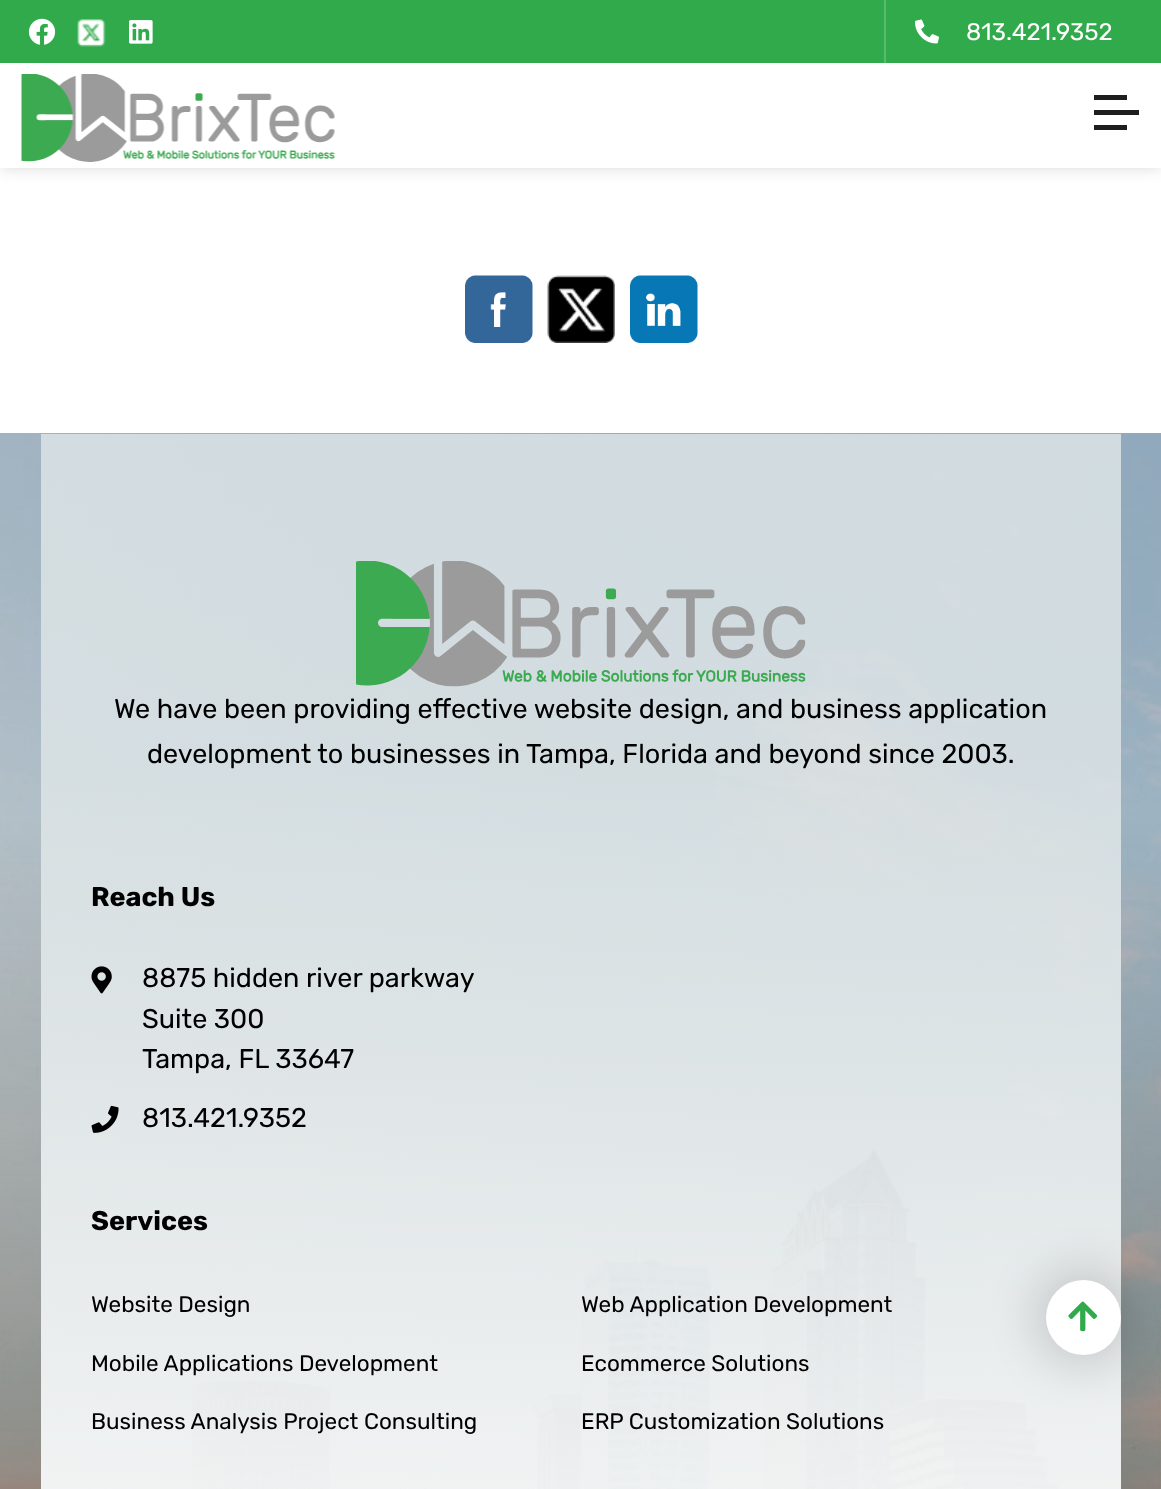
(async () => {
    const canvas = document.querySelector("canvas");
    canvas.width = 1161;
    canvas.height = 1489;
    const context = canvas.getContext("2d");
    context.miterLimit = 4;
    context.fontKerning = "normal";
    function write(s, x, y, font, color) {
        context.font = font;
        context.fillStyle = color;
        context.fillText(s, x, y);
    }
    function block(x, y, w, h, color) {
        context.fillStyle = color;
        context.fillRect(x, y, w, h);
    }
    async function photo(src, x, y, w, h) {
        const img = new Image();
        img.src = src;
        await img.decode();
        context.drawImage(img, x, y, w, h);
    }
    let gradient;

    block(0, 0, 1161, 1489, "rgb(255, 255, 255)");
    context.fillStyle = "rgba(0, 0, 0, 0.15)";
    context.filter = "blur(7.5px)";
    context.beginPath();
    context.rect(0, 0, 1161, 168);
    context.fill();
    context.filter = "none";
    block(0, 63, 1161, 105, "rgb(255, 255, 255)");
    block(0, 0, 1161, 63, "rgb(49, 170, 76)");
    block(884, 0, 2, 63, "rgb(90, 187, 112)");
    await photo("media/1.png", 28, 18, 28, 27);
    await photo("media/2.png", 77, 19, 29, 28);
    await photo("media/3.png", 129, 20, 24, 24);
    await photo("media/4.png", 915, 19, 24, 25);
    write("813.421.9352", 966, 40, "24px Rubik", "rgb(255, 255, 255)");
    await photo("media/5.png", 21, 74, 314, 88);
    block(1094, 110, 45, 5, "rgb(30, 30, 30)");
    block(1094, 95, 33, 5, "rgb(30, 30, 30)");
    block(1094, 125, 33, 5, "rgb(30, 30, 30)");
    await photo("media/6.png", 465, 275, 68, 68);
    await photo("media/7.png", 547, 275, 68, 68);
    await photo("media/8.png", 630, 275, 68, 68);
    gradient = context.createLinearGradient(581, 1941, 581, 434);
    gradient.addColorStop(0.1, "rgb(0, 0, 0)");
    gradient.addColorStop(0.75, "rgb(255, 255, 255)");
    context.fillStyle = gradient;
    context.fillRect(0, 820, 1161, 669);
    await photo("media/9.png", 0, 433, 1161, 1056);
    gradient = context.createLinearGradient(581, 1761, 581, 434);
    gradient.addColorStop(0, "rgb(255, 255, 255)");
    gradient.addColorStop(0.74, "rgba(220, 228, 230, 0.85)");
    context.fillStyle = gradient;
    context.fillRect(41, 434, 1080, 1055);
    await photo("media/10.png", 356, 561, 450, 126);
    write("We have been providing effective website design, and business application", 114, 718, "27px Rubik", "rgb(0, 0, 0)");
    write("development to businesses in Tampa, Florida and beyond since 2003.", 147, 763, "27px Rubik", "rgb(0, 0, 0)");
    write("Reach Us", 91, 906, "bold 27px Rubik", "rgb(0, 0, 0)");
    await photo("media/11.png", 91, 966, 21, 28);
    write("8875 hidden river parkway", 142, 987, "27px Rubik", "rgb(0, 0, 0)");
    write("Suite 300", 142, 1028, "27px Rubik", "rgb(0, 0, 0)");
    write("Tampa, FL 33647", 142, 1068, "27px Rubik", "rgb(0, 0, 0)");
    await photo("media/12.png", 91, 1105, 28, 28);
    write("813.421.9352", 142, 1127, "27px Rubik", "rgb(0, 0, 0)");
    write("Services", 91, 1230, "bold 27px Rubik", "rgb(0, 0, 0)");
    write("Website Design", 91, 1312, "22.5px Rubik", "rgb(0, 0, 0)");
    write("Web Application Development", 581, 1312, "22.5px Rubik", "rgb(0, 0, 0)");
    write("Mobile Applications Development", 91, 1371, "22.5px Rubik", "rgb(0, 0, 0)");
    write("Ecommerce Solutions", 581, 1371, "22.5px Rubik", "rgb(0, 0, 0)");
    write("Business Analysis Project Consulting", 91, 1429, "22.5px Rubik", "rgb(0, 0, 0)");
    write("ERP Customization Solutions", 581, 1429, "22.5px Rubik", "rgb(0, 0, 0)");
    context.fillStyle = "rgba(0, 0, 0, 0.16)";
    context.filter = "blur(24px)";
    context.beginPath();
    context.roundRect(1037, 1271, 93, 93, 46.5);
    context.fill();
    context.filter = "none";
    context.fillStyle = "rgb(255, 255, 255)";
    context.beginPath();
    context.arc(1083.5, 1317.5, 37.5, 0, Math.PI * 2);
    context.fill();
    await photo("media/13.png", 1068, 1301, 30, 31);
})();
